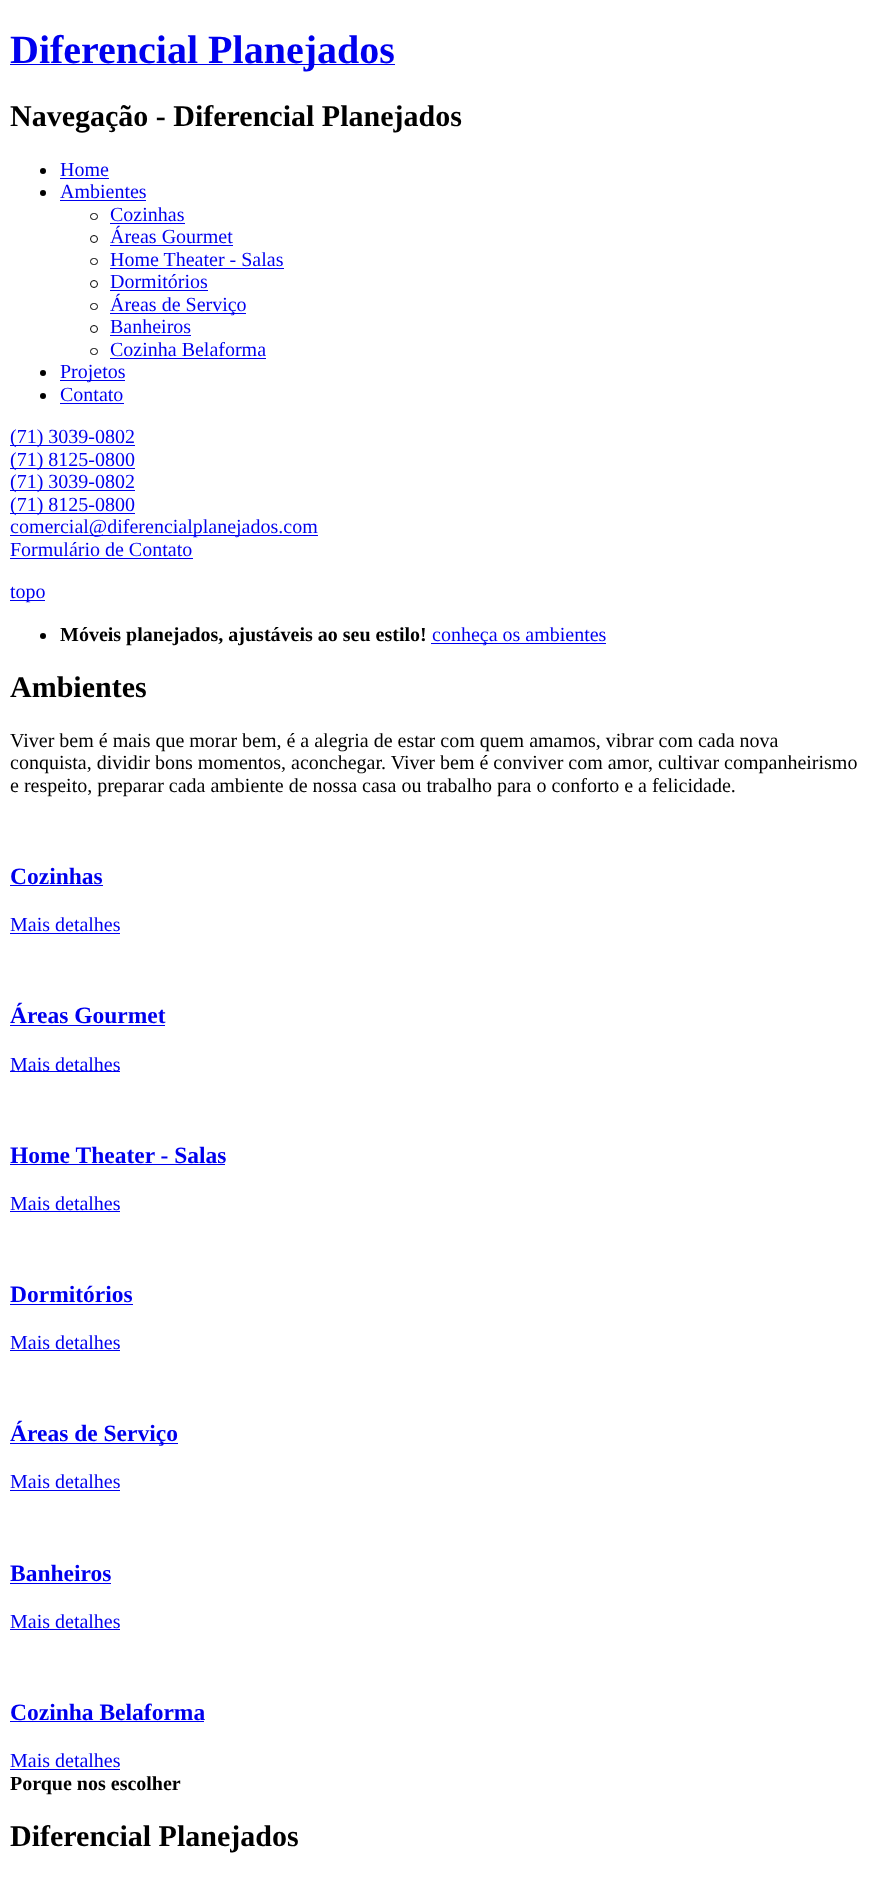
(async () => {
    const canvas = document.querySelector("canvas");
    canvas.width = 870;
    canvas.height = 1884;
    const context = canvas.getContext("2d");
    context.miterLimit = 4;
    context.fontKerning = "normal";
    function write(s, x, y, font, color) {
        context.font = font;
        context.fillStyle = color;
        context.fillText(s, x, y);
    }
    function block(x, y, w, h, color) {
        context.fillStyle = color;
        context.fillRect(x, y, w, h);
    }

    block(0, 0, 870, 1884, "rgb(255, 255, 255)");
    block(10, 64, 385, 1, "rgb(0, 0, 238)");
    write("Diferencial Planejados", 10, 63, "bold 40px Liberation Serif", "rgb(0, 0, 238)");
    write("Navegação - Diferencial Planejados", 10, 126, "bold 30px Liberation Serif", "rgb(0, 0, 0)");
    context.beginPath();
    context.arc(43, 171, 3, 0, Math.PI * 2);
    context.fill();
    write("Home", 60, 176, "20px Liberation Serif", "rgb(0, 0, 238)");
    block(60, 178, 49, 1, "rgb(0, 0, 238)");
    context.fillStyle = "rgb(0, 0, 0)";
    context.beginPath();
    context.arc(43, 193, 3, 0, Math.PI * 2);
    context.fill();
    write("Ambientes", 60, 198, "20px Liberation Serif", "rgb(0, 0, 238)");
    block(60, 200, 86, 1, "rgb(0, 0, 238)");
    context.beginPath();
    context.roundRect(90.5, 213.5, 7, 6, 3);
    context.strokeStyle = "rgb(0, 0, 0)";
    context.stroke();
    write("Cozinhas", 110, 221, "20px Liberation Serif", "rgb(0, 0, 238)");
    block(110, 223, 75, 1, "rgb(0, 0, 238)");
    context.beginPath();
    context.arc(94, 239, 3.5, 0, Math.PI * 2);
    context.stroke();
    write("Áreas Gourmet", 110, 243, "20px Liberation Serif", "rgb(0, 0, 238)");
    block(110, 245, 123, 1, "rgb(0, 0, 238)");
    context.beginPath();
    context.roundRect(90.5, 258.5, 7, 6, 3);
    context.stroke();
    write("Home Theater - Salas", 110, 266, "20px Liberation Serif", "rgb(0, 0, 238)");
    block(110, 268, 174, 1, "rgb(0, 0, 238)");
    context.beginPath();
    context.arc(94, 284, 3.5, 0, Math.PI * 2);
    context.stroke();
    write("Dormitórios", 110, 288, "20px Liberation Serif", "rgb(0, 0, 238)");
    block(110, 290, 98, 1, "rgb(0, 0, 238)");
    context.beginPath();
    context.roundRect(90.5, 303.5, 7, 6, 3);
    context.stroke();
    block(110, 313, 136, 1, "rgb(0, 0, 238)");
    write("Áreas de Serviço", 110, 311, "20px Liberation Serif", "rgb(0, 0, 238)");
    context.beginPath();
    context.arc(94, 329, 3.5, 0, Math.PI * 2);
    context.stroke();
    write("Banheiros", 110, 333, "20px Liberation Serif", "rgb(0, 0, 238)");
    block(110, 335, 81, 1, "rgb(0, 0, 238)");
    context.beginPath();
    context.roundRect(90.5, 348.5, 7, 6, 3);
    context.stroke();
    write("Cozinha Belaforma", 110, 356, "20px Liberation Serif", "rgb(0, 0, 238)");
    block(110, 358, 156, 1, "rgb(0, 0, 238)");
    context.fillStyle = "rgb(0, 0, 0)";
    context.beginPath();
    context.arc(43, 373, 3, 0, Math.PI * 2);
    context.fill();
    block(60, 380, 65, 1, "rgb(0, 0, 238)");
    write("Projetos", 60, 378, "20px Liberation Serif", "rgb(0, 0, 238)");
    context.fillStyle = "rgb(0, 0, 0)";
    context.beginPath();
    context.arc(43, 396, 3, 0, Math.PI * 2);
    context.fill();
    write("Contato", 60, 401, "20px Liberation Serif", "rgb(0, 0, 238)");
    block(60, 403, 64, 1, "rgb(0, 0, 238)");
    block(10, 445, 125, 1, "rgb(0, 0, 238)");
    write("(71) 3039-0802", 10, 443, "20px Liberation Serif", "rgb(0, 0, 238)");
    block(10, 468, 125, 1, "rgb(0, 0, 238)");
    write("(71) 8125-0800", 10, 466, "20px Liberation Serif", "rgb(0, 0, 238)");
    block(10, 490, 125, 1, "rgb(0, 0, 238)");
    write("(71) 3039-0802", 10, 488, "20px Liberation Serif", "rgb(0, 0, 238)");
    block(10, 513, 125, 1, "rgb(0, 0, 238)");
    write("(71) 8125-0800", 10, 511, "20px Liberation Serif", "rgb(0, 0, 238)");
    block(10, 535, 308, 1, "rgb(0, 0, 238)");
    write("comercial@diferencialplanejados.com", 10, 533, "20px Liberation Serif", "rgb(0, 0, 238)");
    write("Formulário de Contato", 10, 556, "20px Liberation Serif", "rgb(0, 0, 238)");
    block(10, 558, 183, 1, "rgb(0, 0, 238)");
    block(10, 600, 35, 1, "rgb(0, 0, 238)");
    write("topo", 10, 598, "20px Liberation Serif", "rgb(0, 0, 238)");
    context.fillStyle = "rgb(0, 0, 0)";
    context.beginPath();
    context.arc(43, 636, 3, 0, Math.PI * 2);
    context.fill();
    write("Móveis planejados, ajustáveis ao seu estilo!", 60, 641, "bold 20px Liberation Serif", "rgb(0, 0, 0)");
    block(431, 643, 175, 1, "rgb(0, 0, 238)");
    write("conheça os ambientes", 432, 641, "20px Liberation Serif", "rgb(0, 0, 238)");
    write("Ambientes", 10, 697, "bold 30px Liberation Serif", "rgb(0, 0, 0)");
    write("Viver bem é mais que morar bem, é a alegria de estar com quem amamos, vibrar com cada nova", 10, 747, "20px Liberation Serif", "rgb(0, 0, 0)");
    write("conquista, dividir bons momentos, aconchegar. Viver bem é conviver com amor, cultivar companheirismo", 10, 769, "20px Liberation Serif", "rgb(0, 0, 0)");
    write("e respeito, preparar cada ambiente de nossa casa ou trabalho para o conforto e a felicidade.", 10, 792, "20px Liberation Serif", "rgb(0, 0, 0)");
    write("Cozinhas", 10, 884, "bold 23.5px Liberation Serif", "rgb(0, 0, 238)");
    block(10, 885, 93, 1, "rgb(0, 0, 238)");
    write("Mais detalhes", 10, 931, "20px Liberation Serif", "rgb(0, 0, 238)");
    block(10, 933, 110, 1, "rgb(0, 0, 238)");
    write("Áreas Gourmet", 10, 1023, "bold 23.5px Liberation Serif", "rgb(0, 0, 238)");
    block(10, 1025, 155, 1, "rgb(0, 0, 238)");
    block(10, 1071, 110, 1, "rgb(0, 0, 238)");
    write("Mais detalhes", 10, 1071, "20px Liberation Serif", "rgb(0, 0, 238)");
    write("Home Theater - Salas", 10, 1163, "bold 23.5px Liberation Serif", "rgb(0, 0, 238)");
    block(10, 1164, 215, 1, "rgb(0, 0, 238)");
    write("Mais detalhes", 10, 1210, "20px Liberation Serif", "rgb(0, 0, 238)");
    block(10, 1211, 110, 1, "rgb(0, 0, 238)");
    write("Dormitórios", 10, 1302, "bold 23.5px Liberation Serif", "rgb(0, 0, 238)");
    block(10, 1304, 123, 1, "rgb(0, 0, 238)");
    write("Mais detalhes", 10, 1349, "20px Liberation Serif", "rgb(0, 0, 238)");
    block(10, 1350, 110, 1, "rgb(0, 0, 238)");
    block(10, 1443, 168, 1, "rgb(0, 0, 238)");
    write("Áreas de Serviço", 10, 1441, "bold 23.5px Liberation Serif", "rgb(0, 0, 238)");
    write("Mais detalhes", 10, 1488, "20px Liberation Serif", "rgb(0, 0, 238)");
    block(10, 1490, 110, 1, "rgb(0, 0, 238)");
    write("Banheiros", 10, 1581, "bold 23.5px Liberation Serif", "rgb(0, 0, 238)");
    block(10, 1583, 101, 1, "rgb(0, 0, 238)");
    write("Mais detalhes", 10, 1628, "20px Liberation Serif", "rgb(0, 0, 238)");
    block(10, 1629, 110, 1, "rgb(0, 0, 238)");
    write("Cozinha Belaforma", 10, 1720, "bold 23.5px Liberation Serif", "rgb(0, 0, 238)");
    block(10, 1721, 194, 1, "rgb(0, 0, 238)");
    write("Mais detalhes", 10, 1767, "20px Liberation Serif", "rgb(0, 0, 238)");
    block(10, 1769, 110, 1, "rgb(0, 0, 238)");
    write("Porque nos escolher", 10, 1790, "bold 20px Liberation Serif", "rgb(0, 0, 0)");
    write("Diferencial Planejados", 10, 1846, "bold 30px Liberation Serif", "rgb(0, 0, 0)");
})();
